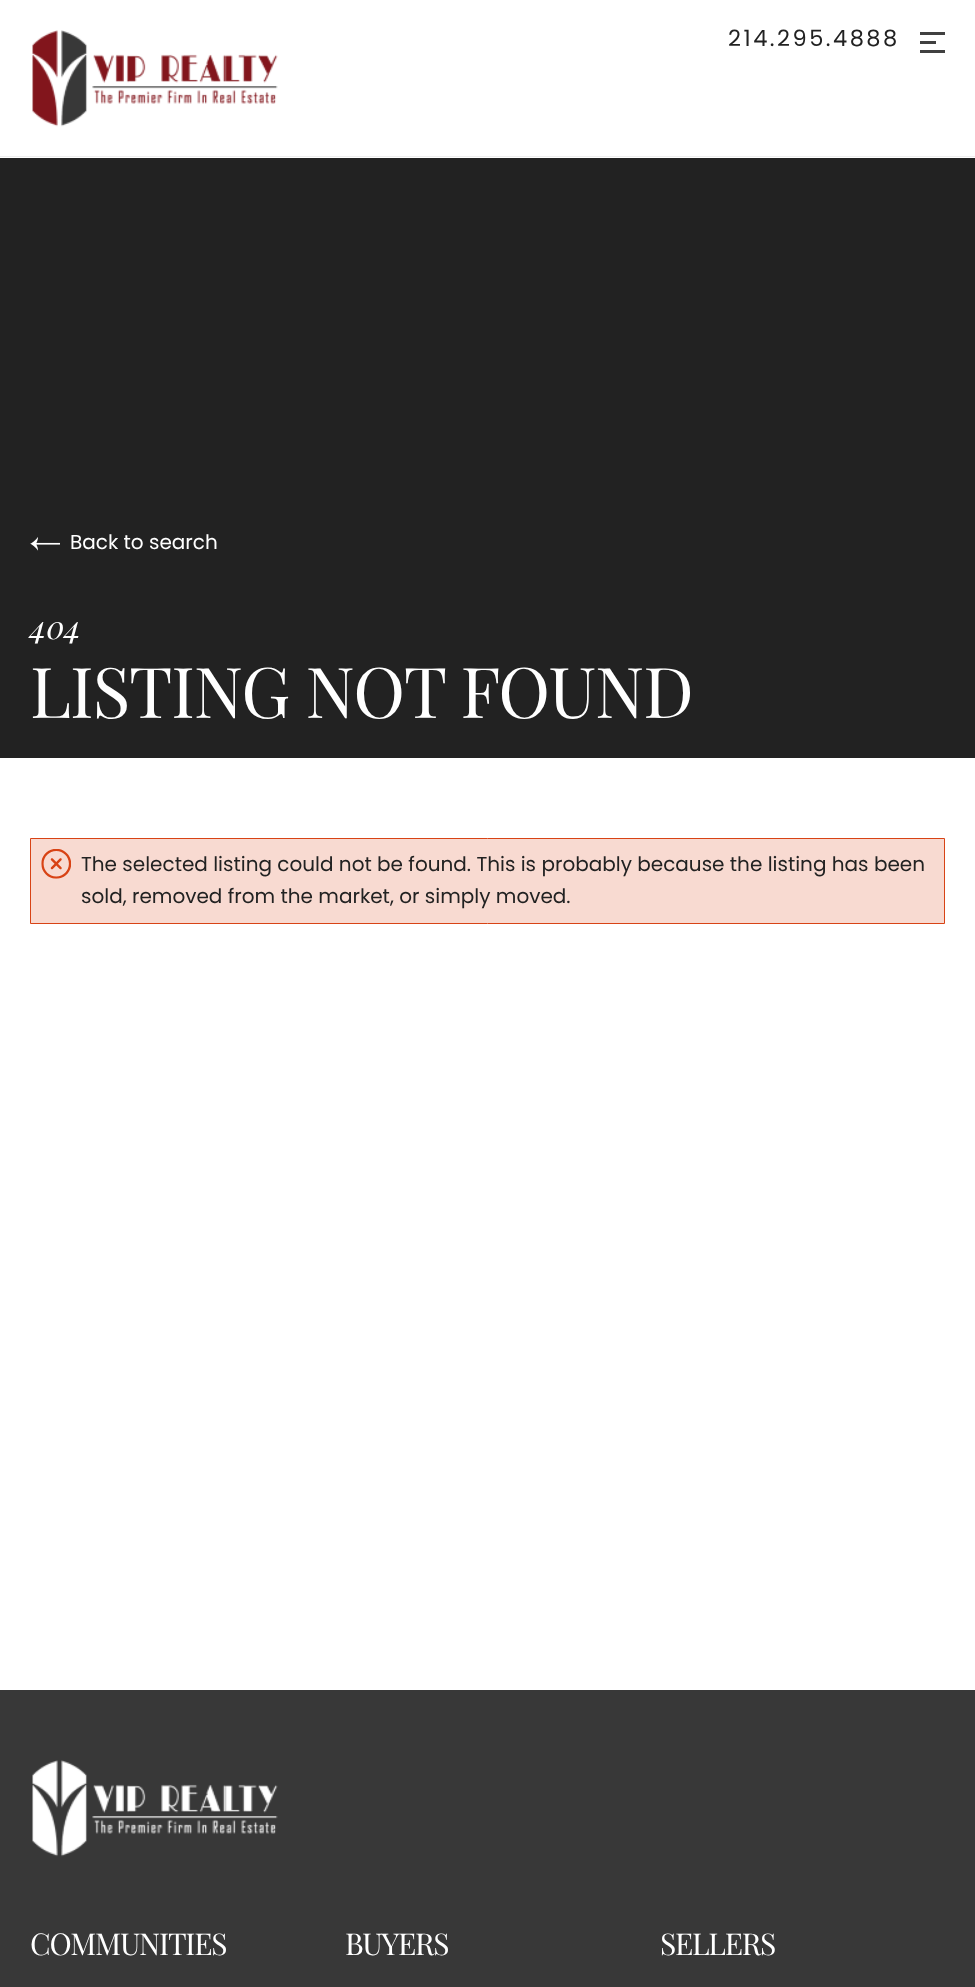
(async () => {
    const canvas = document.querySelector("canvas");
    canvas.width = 975;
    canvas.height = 1987;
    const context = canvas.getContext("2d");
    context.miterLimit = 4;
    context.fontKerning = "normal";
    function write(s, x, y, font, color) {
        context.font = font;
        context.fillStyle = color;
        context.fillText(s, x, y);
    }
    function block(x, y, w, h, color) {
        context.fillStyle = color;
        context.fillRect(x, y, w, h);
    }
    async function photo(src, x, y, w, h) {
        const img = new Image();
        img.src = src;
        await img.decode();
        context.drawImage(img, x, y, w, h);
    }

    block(0, 0, 975, 1987, "rgb(255, 255, 255)");
    block(0, 156, 975, 1, "rgb(238, 238, 238)");
    await photo("media/1.png", 32, 30, 246, 97);
    context.letterSpacing = "2.5px";
    write("214.295.4888", 728, 46, "22.5px Poppins", "rgb(34, 34, 34)");
    block(920, 32, 25, 3, "rgb(64, 64, 64)");
    block(920, 41, 16, 3, "rgb(64, 64, 64)");
    block(920, 50, 25, 3, "rgb(64, 64, 64)");
    block(0, 158, 975, 600, "rgb(34, 34, 34)");
    await photo("media/2.png", 30, 537, 30, 14);
    context.letterSpacing = "0px";
    write("Back to search", 70, 549, "20px Poppins", "rgb(255, 255, 255)");
    write("404", 30, 639, "italic 32px Playfair Display", "rgb(255, 255, 255)");
    context.letterSpacing = "-1.25px";
    write("LISTING NOT FOUND", 30, 718, "70px Playfair Display", "rgb(255, 255, 255)");
    context.fillStyle = "rgb(248, 218, 209)";
    context.beginPath();
    context.rect(30.5, 838.5, 914, 85);
    context.fill();
    context.strokeStyle = "rgb(216, 67, 21)";
    context.stroke();
    await photo("media/3.png", 41, 849, 30, 30);
    context.letterSpacing = "0px";
    write("The selected listing could not be found. This is probably because the listing has been", 81, 871, "20px Poppins", "rgb(34, 34, 34)");
    write("sold, removed from the market, or simply moved.", 81, 903, "20px Poppins", "rgb(34, 34, 34)");
    block(0, 1690, 975, 297, "rgb(56, 56, 56)");
    await photo("media/4.png", 32, 1760, 246, 97);
    context.letterSpacing = "-1.25px";
    write("COMMUNITIES", 30, 1955, "30px Playfair Display", "rgb(255, 255, 255)");
    write("BUYERS", 345, 1955, "30px Playfair Display", "rgb(255, 255, 255)");
    write("SELLERS", 660, 1955, "30px Playfair Display", "rgb(255, 255, 255)");
})();
